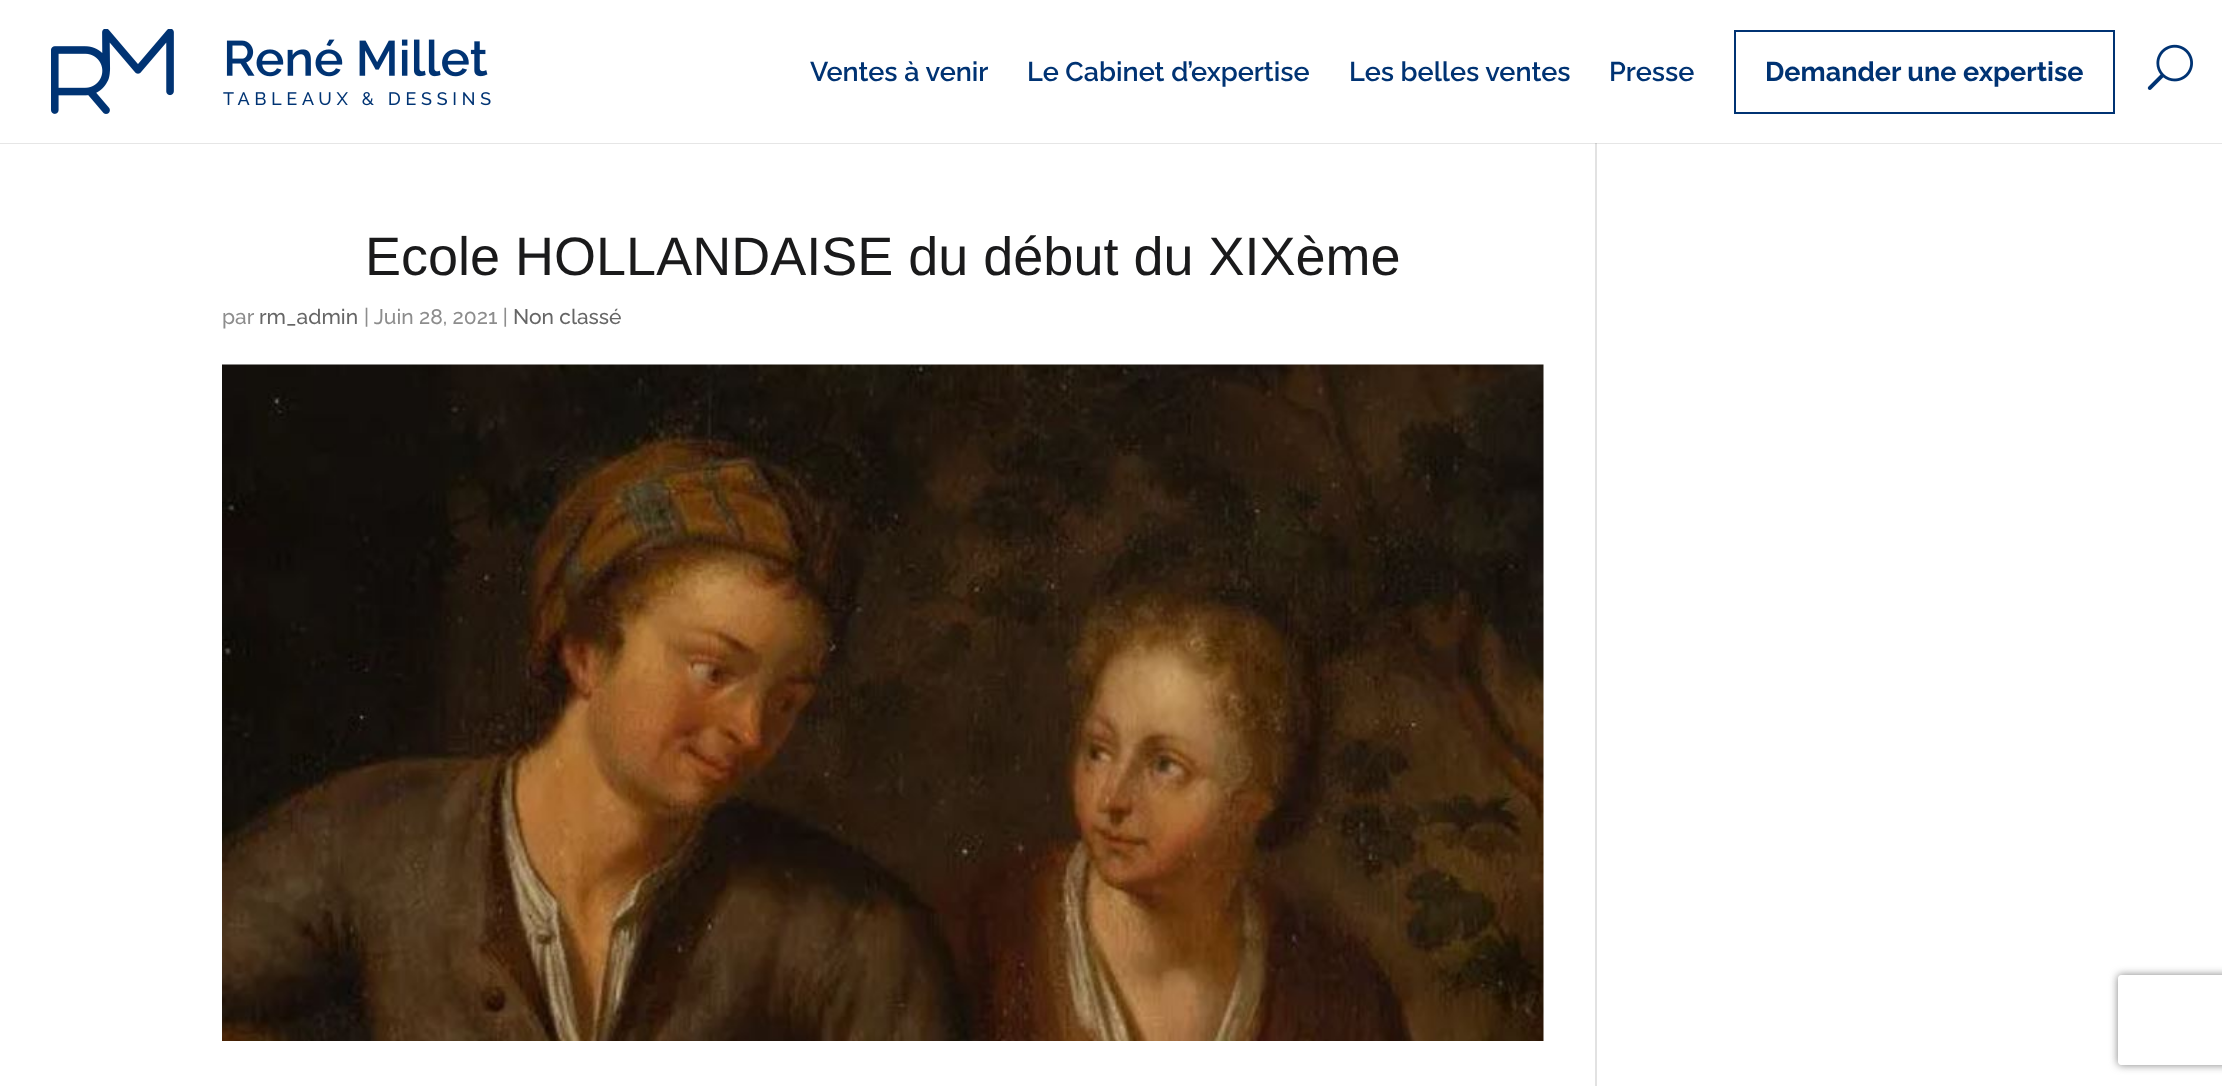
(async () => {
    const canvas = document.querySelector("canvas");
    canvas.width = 2222;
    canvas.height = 1086;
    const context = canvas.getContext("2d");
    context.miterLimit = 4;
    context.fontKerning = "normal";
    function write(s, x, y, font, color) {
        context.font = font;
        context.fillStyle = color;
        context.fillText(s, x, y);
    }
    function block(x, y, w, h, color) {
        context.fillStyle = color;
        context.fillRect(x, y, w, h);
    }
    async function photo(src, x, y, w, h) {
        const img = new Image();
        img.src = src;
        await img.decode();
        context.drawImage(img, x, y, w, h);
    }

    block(0, 0, 2222, 1086, "rgb(255, 255, 255)");
    block(0, 143, 2222, 1, "rgb(230, 230, 230)");
    await photo("media/1.png", 51, 29, 440, 85);
    write("Ventes à venir", 810, 81, "100 27px 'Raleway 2'", "rgb(0, 51, 115)");
    write("Le Cabinet d’expertise", 1027, 81, "100 27px 'Raleway 2'", "rgb(0, 51, 115)");
    write("Les belles ventes", 1349, 81, "100 27px 'Raleway 2'", "rgb(0, 51, 115)");
    write("Presse", 1609, 81, "100 27px 'Raleway 2'", "rgb(0, 51, 115)");
    context.strokeStyle = "rgb(0, 51, 115)";
    context.lineWidth = 2;
    context.strokeRect(1735, 31, 379, 82);
    write("Demander une expertise", 1765, 81, "100 27px 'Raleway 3'", "rgb(0, 51, 115)");
    await photo("media/2.png", 2147, 44, 46, 46);
    write("Ecole HOLLANDAISE du début du XIXème", 365, 275, "54px Liberation Sans", "rgb(26, 26, 27)");
    write("par", 222, 324, "100 21px Raleway", "rgb(141, 141, 141)");
    write("rm_admin", 259, 324, "100 21px Raleway", "rgb(102, 102, 102)");
    write("| Juin 28, 2021 |", 364, 324, "100 21px Raleway", "rgb(141, 141, 141)");
    write("Non classé", 513, 324, "100 21px Raleway", "rgb(102, 102, 102)");
    await photo("media/3.png", 222, 364, 1322, 677);
    block(1595, 143, 2, 943, "rgb(226, 226, 226)");
    block(1595, 143, 2, 1, "rgb(203, 203, 203)");
    context.save();
    context.beginPath();
    context.moveTo(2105, 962);
    context.lineTo(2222, 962);
    context.lineTo(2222, 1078);
    context.lineTo(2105, 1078);
    context.closePath();
    context.moveTo(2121, 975);
    context.lineTo(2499, 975);
    context.bezierCurveTo(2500.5, 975, 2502, 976.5, 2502, 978);
    context.lineTo(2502, 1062);
    context.bezierCurveTo(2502, 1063.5, 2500.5, 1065, 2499, 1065);
    context.lineTo(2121, 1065);
    context.bezierCurveTo(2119.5, 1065, 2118, 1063.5, 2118, 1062);
    context.lineTo(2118, 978);
    context.bezierCurveTo(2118, 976.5, 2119.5, 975, 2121, 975);
    context.closePath();
    context.clip("evenodd");
    context.fillStyle = "rgb(128, 128, 128)";
    context.filter = "blur(4px)";
    context.beginPath();
    context.roundRect(2118, 975, 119, 90, 3);
    context.fill();
    context.filter = "none";
    context.restore();
})();
